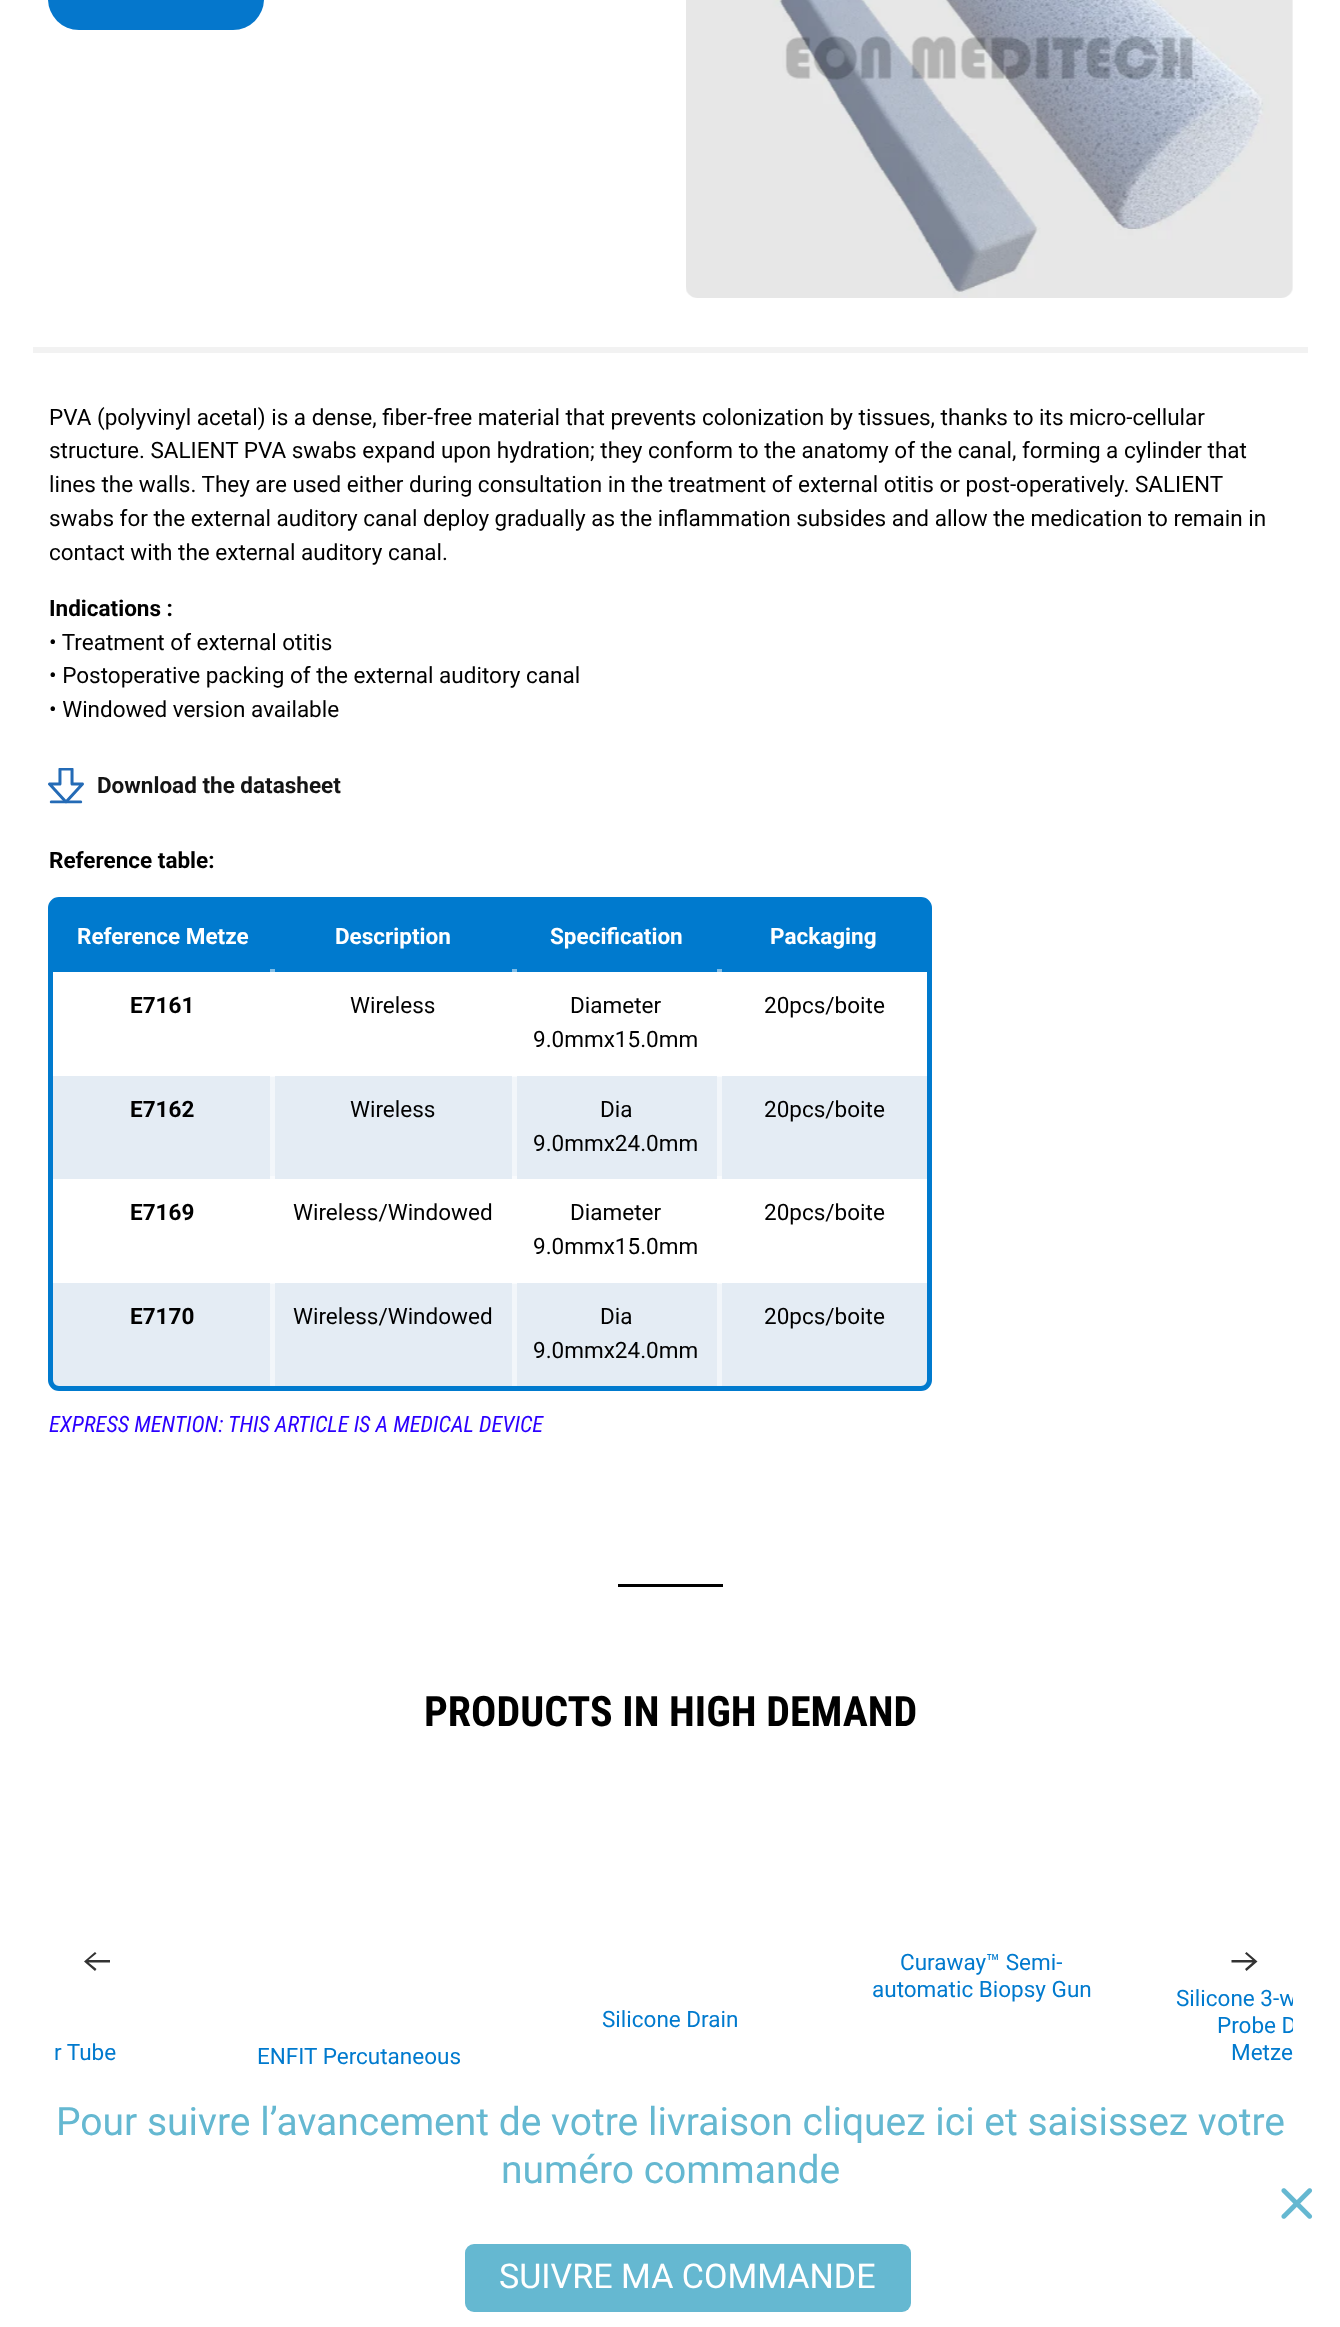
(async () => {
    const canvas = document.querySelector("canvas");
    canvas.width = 1340;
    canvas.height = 2327;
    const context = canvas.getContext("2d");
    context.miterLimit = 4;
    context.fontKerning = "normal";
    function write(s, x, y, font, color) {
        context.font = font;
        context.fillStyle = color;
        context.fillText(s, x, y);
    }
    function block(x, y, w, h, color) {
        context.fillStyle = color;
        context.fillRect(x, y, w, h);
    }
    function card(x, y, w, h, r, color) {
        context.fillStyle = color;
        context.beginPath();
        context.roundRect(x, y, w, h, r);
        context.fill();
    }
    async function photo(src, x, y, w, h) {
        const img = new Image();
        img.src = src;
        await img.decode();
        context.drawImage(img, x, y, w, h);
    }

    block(0, 0, 1340, 2327, "rgb(255, 255, 255)");
    block(33, 347, 1275, 6, "rgb(242, 242, 242)");
    card(48, -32, 216, 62, 32, "rgb(5, 119, 204)");
    await photo("media/1.png", 686, 0, 607, 298);
    write("PVA (polyvinyl acetal) is a dense, fiber-free material that prevents colonization by tissues, thanks to its micro-cellular", 49, 425, "22.5px Roboto", "rgb(0, 0, 0)");
    write("structure. SALIENT PVA swabs expand upon hydration; they conform to the anatomy of the canal, forming a cylinder that", 49, 458, "22.5px Roboto", "rgb(0, 0, 0)");
    write("lines the walls. They are used either during consultation in the treatment of external otitis or post-operatively. SALIENT", 49, 492, "22.5px Roboto", "rgb(0, 0, 0)");
    write("swabs for the external auditory canal deploy gradually as the inflammation subsides and allow the medication to remain in", 49, 526, "22.5px Roboto", "rgb(0, 0, 0)");
    write("contact with the external auditory canal.", 49, 560, "22.5px Roboto", "rgb(0, 0, 0)");
    write("Indications :", 49, 616, "bold 22.5px Roboto", "rgb(0, 0, 0)");
    write("• Treatment of external otitis", 49, 650, "22.5px Roboto", "rgb(0, 0, 0)");
    write("• Postoperative packing of the external auditory canal", 49, 683, "22.5px Roboto", "rgb(0, 0, 0)");
    write("• Windowed version available", 49, 717, "22.5px Roboto", "rgb(0, 0, 0)");
    await photo("media/2.png", 48, 768, 36, 36);
    write("Download the datasheet", 97, 793, "bold 22.5px Roboto", "rgb(20, 20, 20)");
    write("Reference table:", 49, 868, "bold 22.5px Roboto", "rgb(0, 0, 0)");
    block(53, 902, 874, 70, "rgb(0, 122, 206)");
    block(270, 969, 5, 3, "rgb(128, 189, 231)");
    block(512, 969, 5, 3, "rgb(128, 189, 231)");
    block(717, 969, 5, 3, "rgb(128, 189, 231)");
    block(53, 1076, 874, 103, "rgb(228, 236, 244)");
    block(270, 1076, 5, 103, "rgb(242, 246, 250)");
    block(270, 1076, 5, 1, "rgb(249, 251, 253)");
    block(512, 1076, 5, 103, "rgb(242, 246, 250)");
    block(512, 1076, 5, 1, "rgb(249, 251, 253)");
    block(717, 1076, 5, 103, "rgb(242, 246, 250)");
    block(717, 1076, 5, 1, "rgb(249, 251, 253)");
    block(270, 1176, 5, 3, "rgb(249, 251, 253)");
    block(512, 1176, 5, 3, "rgb(249, 251, 253)");
    block(717, 1176, 5, 3, "rgb(249, 251, 253)");
    block(53, 1283, 874, 103, "rgb(228, 236, 244)");
    block(270, 1283, 5, 103, "rgb(242, 246, 250)");
    block(270, 1283, 5, 1, "rgb(249, 251, 253)");
    block(512, 1283, 5, 103, "rgb(242, 246, 250)");
    block(512, 1283, 5, 1, "rgb(249, 251, 253)");
    block(717, 1283, 5, 103, "rgb(242, 246, 250)");
    block(717, 1283, 5, 1, "rgb(249, 251, 253)");
    context.beginPath();
    context.roundRect(50.5, 899.5, 879, 489, 8.5);
    context.strokeStyle = "rgb(0, 122, 206)";
    context.lineWidth = 5;
    context.stroke();
    write("Reference Metze", 77, 944, "bold 22.5px Roboto", "rgb(255, 255, 255)");
    write("Description", 335, 944, "bold 22.5px Roboto", "rgb(255, 255, 255)");
    write("Specification", 550, 944, "bold 22.5px Roboto", "rgb(255, 255, 255)");
    write("Packaging", 770, 944, "bold 22.5px Roboto", "rgb(255, 255, 255)");
    write("E7161", 130, 1013, "bold 22.5px Roboto", "rgb(0, 0, 0)");
    write("Wireless", 350, 1013, "22.5px Roboto", "rgb(0, 0, 0)");
    write("Diameter", 570, 1013, "22.5px Roboto", "rgb(0, 0, 0)");
    write("9.0mmx15.0mm", 533, 1047, "22.5px Roboto", "rgb(0, 0, 0)");
    write("20pcs/boite", 764, 1013, "22.5px Roboto", "rgb(0, 0, 0)");
    write("E7162", 130, 1117, "bold 22.5px Roboto", "rgb(0, 0, 0)");
    write("Wireless", 350, 1117, "22.5px Roboto", "rgb(0, 0, 0)");
    write("Dia", 600, 1117, "22.5px Roboto", "rgb(0, 0, 0)");
    write("9.0mmx24.0mm", 533, 1151, "22.5px Roboto", "rgb(0, 0, 0)");
    write("20pcs/boite", 764, 1117, "22.5px Roboto", "rgb(0, 0, 0)");
    write("E7169", 130, 1220, "bold 22.5px Roboto", "rgb(0, 0, 0)");
    write("Wireless/Windowed", 293, 1220, "22.5px Roboto", "rgb(0, 0, 0)");
    write("Diameter", 570, 1220, "22.5px Roboto", "rgb(0, 0, 0)");
    write("9.0mmx15.0mm", 533, 1254, "22.5px Roboto", "rgb(0, 0, 0)");
    write("20pcs/boite", 764, 1220, "22.5px Roboto", "rgb(0, 0, 0)");
    write("E7170", 130, 1324, "bold 22.5px Roboto", "rgb(0, 0, 0)");
    write("Wireless/Windowed", 293, 1324, "22.5px Roboto", "rgb(0, 0, 0)");
    write("Dia", 600, 1324, "22.5px Roboto", "rgb(0, 0, 0)");
    write("9.0mmx24.0mm", 533, 1358, "22.5px Roboto", "rgb(0, 0, 0)");
    write("20pcs/boite", 764, 1324, "22.5px Roboto", "rgb(0, 0, 0)");
    write("EXPRESS MENTION: THIS ARTICLE IS A MEDICAL DEVICE", 49, 1432, "italic 22.5px Roboto Condensed", "rgb(43, 0, 255)");
    block(618, 1584, 105, 3, "rgb(0, 0, 0)");
    write("PRODUCTS IN HIGH DEMAND", 424, 1726, "bold 42px Roboto Condensed", "rgb(0, 0, 0)");
    context.fillStyle = "rgb(51, 51, 51)";
    context.beginPath();
    context.moveTo(110, 1960);
    context.lineTo(88.5, 1960);
    context.lineTo(96.5, 1953.5);
    context.lineTo(95, 1952);
    context.lineTo(84, 1961.5);
    context.lineTo(95, 1971);
    context.lineTo(96.5, 1969);
    context.lineTo(88.5, 1962.5);
    context.lineTo(110, 1962.5);
    context.closePath();
    context.fill();
    context.save();
    context.beginPath();
    context.rect(48, 1799, 1245, 325);
    context.clip();
    write("Silicone 3-w", 1176, 2006, "22.5px Roboto", "rgb(0, 122, 206)");
    context.restore();
    context.fillStyle = "rgba(255, 255, 255, 0.75)";
    context.beginPath();
    context.arc(1245, 1961, 33, 0, Math.PI * 2);
    context.fill();
    context.fillStyle = "rgb(51, 51, 51)";
    context.beginPath();
    context.moveTo(1231.5, 1962.5);
    context.lineTo(1252.5, 1962.5);
    context.lineTo(1245, 1969);
    context.lineTo(1246.5, 1971);
    context.lineTo(1257.5, 1961.5);
    context.lineTo(1246.5, 1952);
    context.lineTo(1245, 1953.5);
    context.lineTo(1252.5, 1960);
    context.lineTo(1231.5, 1960);
    context.closePath();
    context.fill();
    write("Curaway™ Semi-", 900, 1970, "22.5px Roboto", "rgb(0, 122, 206)");
    write("automatic Biopsy Gun", 872, 1997, "22.5px Roboto", "rgb(0, 122, 206)");
    write("Silicone Drain", 602, 2027, "22.5px Roboto", "rgb(0, 122, 206)");
    context.save();
    context.beginPath();
    context.rect(48, 1799, 1245, 325);
    context.clip();
    write("Probe D", 1217, 2033, "22.5px Roboto", "rgb(0, 122, 206)");
    context.restore();
    write("Metze", 1231, 2060, "22.5px Roboto", "rgb(0, 122, 206)");
    write("r Tube", 54, 2060, "22.5px Roboto", "rgb(0, 122, 206)");
    write("ENFIT Percutaneous", 257, 2064, "22.5px Roboto", "rgb(0, 122, 206)");
    write("Pour suivre l’avancement de votre livraison cliquez ici et saisissez votre", 56, 2135, "39px Roboto", "rgb(101, 184, 209)");
    write("numéro commande", 501, 2183, "39px Roboto", "rgb(101, 184, 209)");
    card(465, 2244, 446, 68, 9, "rgb(101, 184, 209)");
    write("SUIVRE MA COMMANDE", 499, 2288, "34.1px Roboto", "rgb(255, 255, 255)");
    await photo("media/3.png", 1281, 2188, 32, 31);
})();
